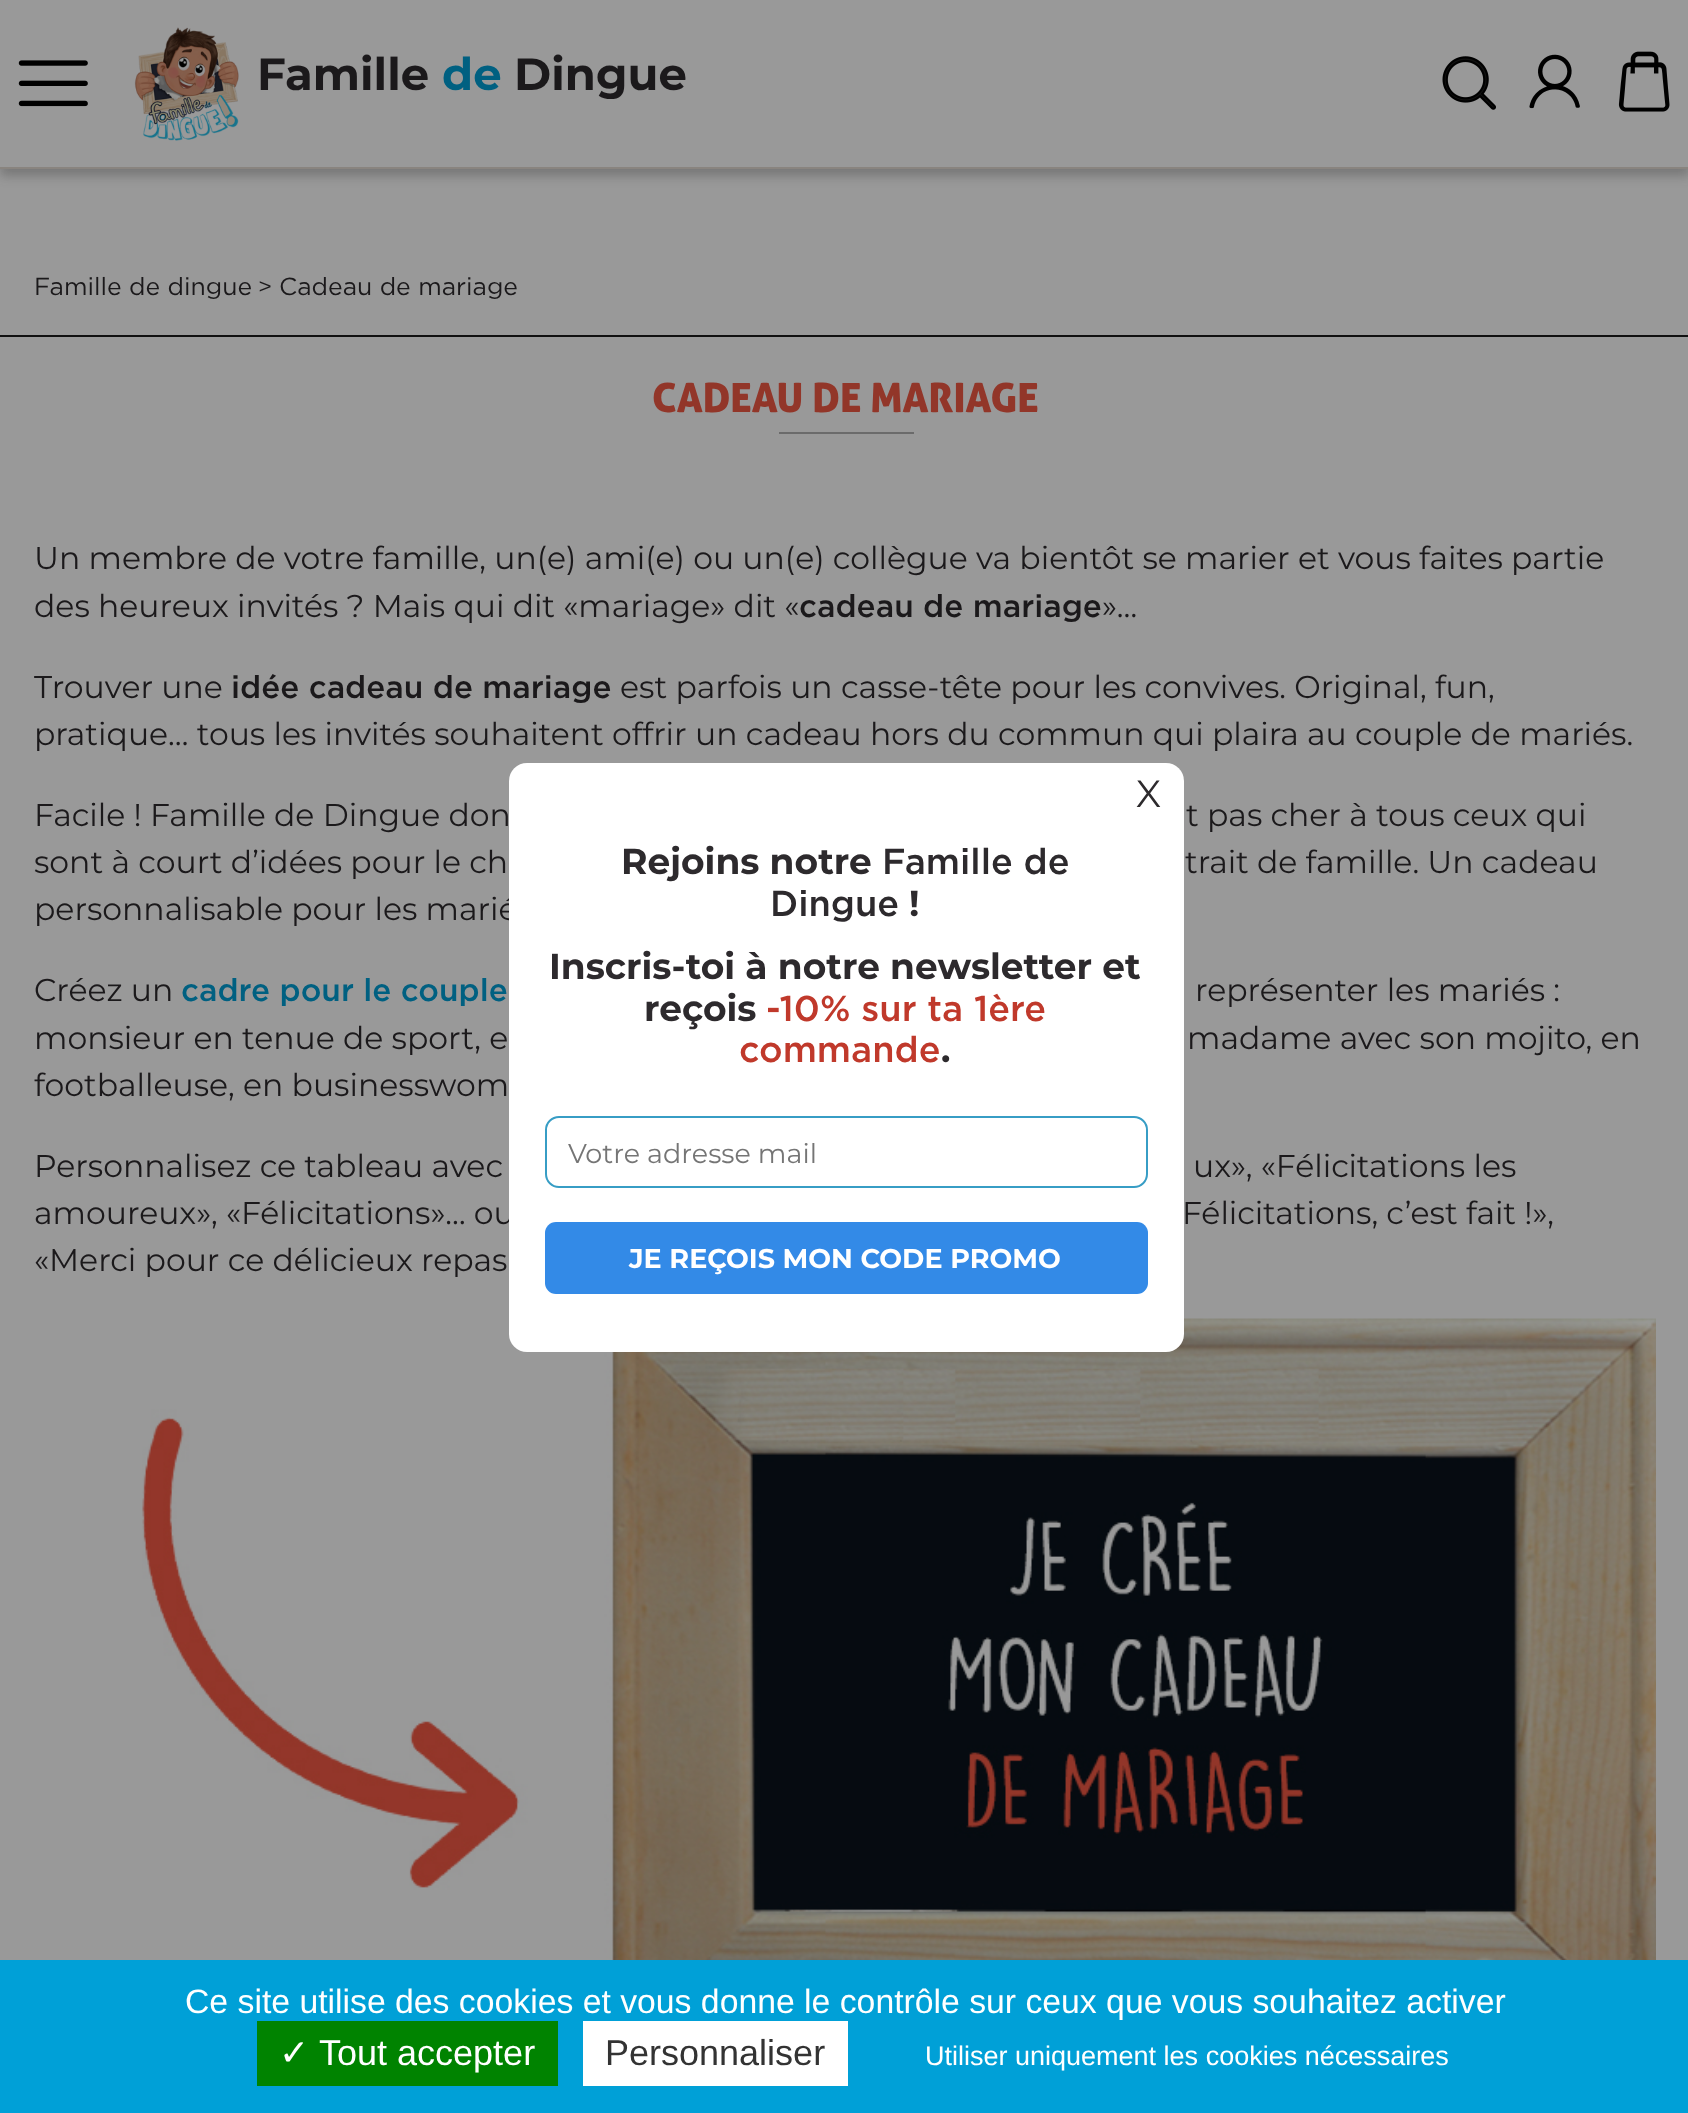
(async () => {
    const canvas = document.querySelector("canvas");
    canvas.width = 1688;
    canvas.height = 2113;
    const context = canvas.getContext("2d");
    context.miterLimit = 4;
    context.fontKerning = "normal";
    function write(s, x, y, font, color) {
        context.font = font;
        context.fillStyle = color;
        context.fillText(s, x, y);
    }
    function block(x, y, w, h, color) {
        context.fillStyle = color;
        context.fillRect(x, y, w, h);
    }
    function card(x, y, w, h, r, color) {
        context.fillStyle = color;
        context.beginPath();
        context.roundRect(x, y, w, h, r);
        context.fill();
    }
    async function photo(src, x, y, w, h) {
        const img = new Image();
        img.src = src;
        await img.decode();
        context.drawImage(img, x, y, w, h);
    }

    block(0, 0, 1688, 2113, "rgb(153, 153, 153)");
    context.fillStyle = "rgba(44, 44, 44, 0.3)";
    context.filter = "blur(5.5px)";
    context.beginPath();
    context.rect(0, 7, 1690, 169);
    context.fill();
    context.filter = "none";
    block(0, 0, 1688, 167, "rgb(153, 153, 153)");
    block(0, 167, 1688, 2, "rgb(137, 132, 127)");
    await photo("media/1.png", 18, 60, 70, 47);
    await photo("media/2.png", 134, 27, 105, 114);
    write("Famille", 257, 90, "bold 45px Montserrat", "rgb(27, 25, 27)");
    write("de", 442, 90, "bold 45px Montserrat", "rgb(0, 96, 129)");
    write("Dingue", 514, 90, "bold 45px Montserrat", "rgb(27, 25, 27)");
    await photo("media/3.png", 1442, 56, 54, 54);
    await photo("media/4.png", 1529, 54, 51, 55);
    await photo("media/5.png", 1618, 51, 52, 61);
    block(0, 335, 1688, 2, "rgb(16, 16, 16)");
    write("Famille de dingue", 34, 295, "24.75px Gotham", "rgb(27, 25, 27)");
    write(">", 258, 295, "24.75px Montserrat", "rgb(27, 25, 27)");
    write("Cadeau de mariage", 279, 295, "24.75px Gotham", "rgb(27, 25, 27)");
    write("CADEAU DE MARIAGE", 652, 412, "40.5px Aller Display", "rgb(146, 54, 41)");
    block(779, 432, 135, 2, "rgb(107, 107, 107)");
    write("Un membre de votre famille, un(e) ami(e) ou un(e) collègue va bientôt se marier et vous faites partie", 34, 569, "31.5px Montserrat", "rgb(27, 25, 27)");
    write("des heureux invités ? Mais qui dit «mariage» dit «", 34, 617, "31.5px Montserrat", "rgb(27, 25, 27)");
    write("cadeau de mariage", 799, 617, "500 31.5px Gotham", "rgb(27, 25, 27)");
    write("»…", 1102, 617, "31.5px Montserrat", "rgb(27, 25, 27)");
    write("Trouver une", 34, 698, "31.5px Montserrat", "rgb(27, 25, 27)");
    write("idée cadeau de mariage", 231, 698, "500 31.5px Gotham", "rgb(27, 25, 27)");
    write("est parfois un casse-tête pour les convives. Original, fun,", 620, 698, "31.5px Montserrat", "rgb(27, 25, 27)");
    write("pratique… tous les invités souhaitent offrir un cadeau hors du commun qui plaira au couple de mariés.", 34, 745, "31.5px Montserrat", "rgb(27, 25, 27)");
    write("Facile ! Famille de Dingue don", 34, 826, "31.5px Montserrat", "rgb(27, 25, 27)");
    write("t pas cher à tous ceux qui", 1186, 826, "31.5px Montserrat", "rgb(27, 25, 27)");
    write("sont à court d’idées pour le ch", 34, 873, "31.5px Montserrat", "rgb(27, 25, 27)");
    write("trait de famille. Un cadeau", 1185, 873, "31.5px Montserrat", "rgb(27, 25, 27)");
    write("personnalisable pour les marié", 34, 920, "31.5px Montserrat", "rgb(27, 25, 27)");
    write("Créez un", 34, 1001, "31.5px Montserrat", "rgb(27, 25, 27)");
    write("cadre pour le couple", 181, 1001, "500 31.5px Gotham", "rgb(0, 96, 129)");
    write("représenter les mariés :", 1195, 1001, "31.5px Montserrat", "rgb(27, 25, 27)");
    write("monsieur en tenue de sport, e", 34, 1049, "31.5px Montserrat", "rgb(27, 25, 27)");
    write("madame avec son mojito, en", 1187, 1049, "31.5px Montserrat", "rgb(27, 25, 27)");
    write("footballeuse, en businesswom", 34, 1096, "31.5px Montserrat", "rgb(27, 25, 27)");
    write("Personnalisez ce tableau avec", 34, 1177, "31.5px Montserrat", "rgb(27, 25, 27)");
    write("ux», «Félicitations les", 1193, 1177, "31.5px Montserrat", "rgb(27, 25, 27)");
    write("amoureux», «Félicitations»… ou", 34, 1224, "31.5px Montserrat", "rgb(27, 25, 27)");
    write("Félicitations, c’est fait !»,", 1182, 1224, "31.5px Montserrat", "rgb(27, 25, 27)");
    write("«Merci pour ce délicieux repas", 34, 1271, "31.5px Montserrat", "rgb(27, 25, 27)");
    await photo("media/6.png", 142, 1318, 1514, 642);
    card(509, 763, 675, 589, 18, "rgb(255, 255, 255)");
    write("X", 1136, 807, "38px Montserrat", "rgb(45, 42, 45)");
    write("Rejoins notre", 621, 874, "bold 36px Montserrat", "rgb(45, 42, 45)");
    write("Famille de", 882, 874, "500 36px Gotham", "rgb(45, 42, 45)");
    write("Dingue", 770, 916, "500 36px Gotham", "rgb(45, 42, 45)");
    write("!", 909, 916, "bold 36px Montserrat", "rgb(45, 42, 45)");
    write("Inscris-toi à notre newsletter et", 549, 979, "bold 36px Montserrat", "rgb(45, 42, 45)");
    write("reçois", 644, 1021, "bold 36px Montserrat", "rgb(45, 42, 45)");
    write("-10% sur ta 1ère", 766, 1021, "500 36px Gotham", "rgb(192, 57, 43)");
    write("commande", 739, 1062, "500 36px Gotham", "rgb(192, 57, 43)");
    write(".", 941, 1062, "bold 36px Montserrat", "rgb(45, 42, 45)");
    context.beginPath();
    context.roundRect(546, 1117, 601, 70, 13);
    context.strokeStyle = "rgb(55, 157, 197)";
    context.lineWidth = 2;
    context.stroke();
    write("Votre adresse mail", 568, 1163, "27px Montserrat", "rgb(117, 117, 117)");
    card(545, 1222, 603, 72, 11, "rgb(51, 138, 231)");
    write("JE REÇOIS MON CODE PROMO", 629, 1268, "bold 27px Montserrat", "rgb(255, 255, 255)");
    block(0, 1960, 1688, 153, "rgb(0, 160, 215)");
    write("Ce site utilise des cookies et vous donne le contrôle sur ceux que vous souhaitez activer", 185, 2013, "33.75px Liberation Sans", "rgb(255, 255, 255)");
    block(257, 2021, 301, 65, "rgb(0, 131, 0)");
    write("✓", 279, 2065, "36px DejaVu Sans", "rgb(255, 255, 255)");
    write("Tout accepter", 319, 2065, "36px Liberation Sans", "rgb(255, 255, 255)");
    block(583, 2021, 265, 65, "rgb(255, 255, 255)");
    write("Personnaliser", 605, 2065, "36px Liberation Sans", "rgb(51, 51, 51)");
    write("Utiliser uniquement les cookies nécessaires", 925, 2065, "27px Liberation Sans", "rgb(255, 255, 255)");
})();
